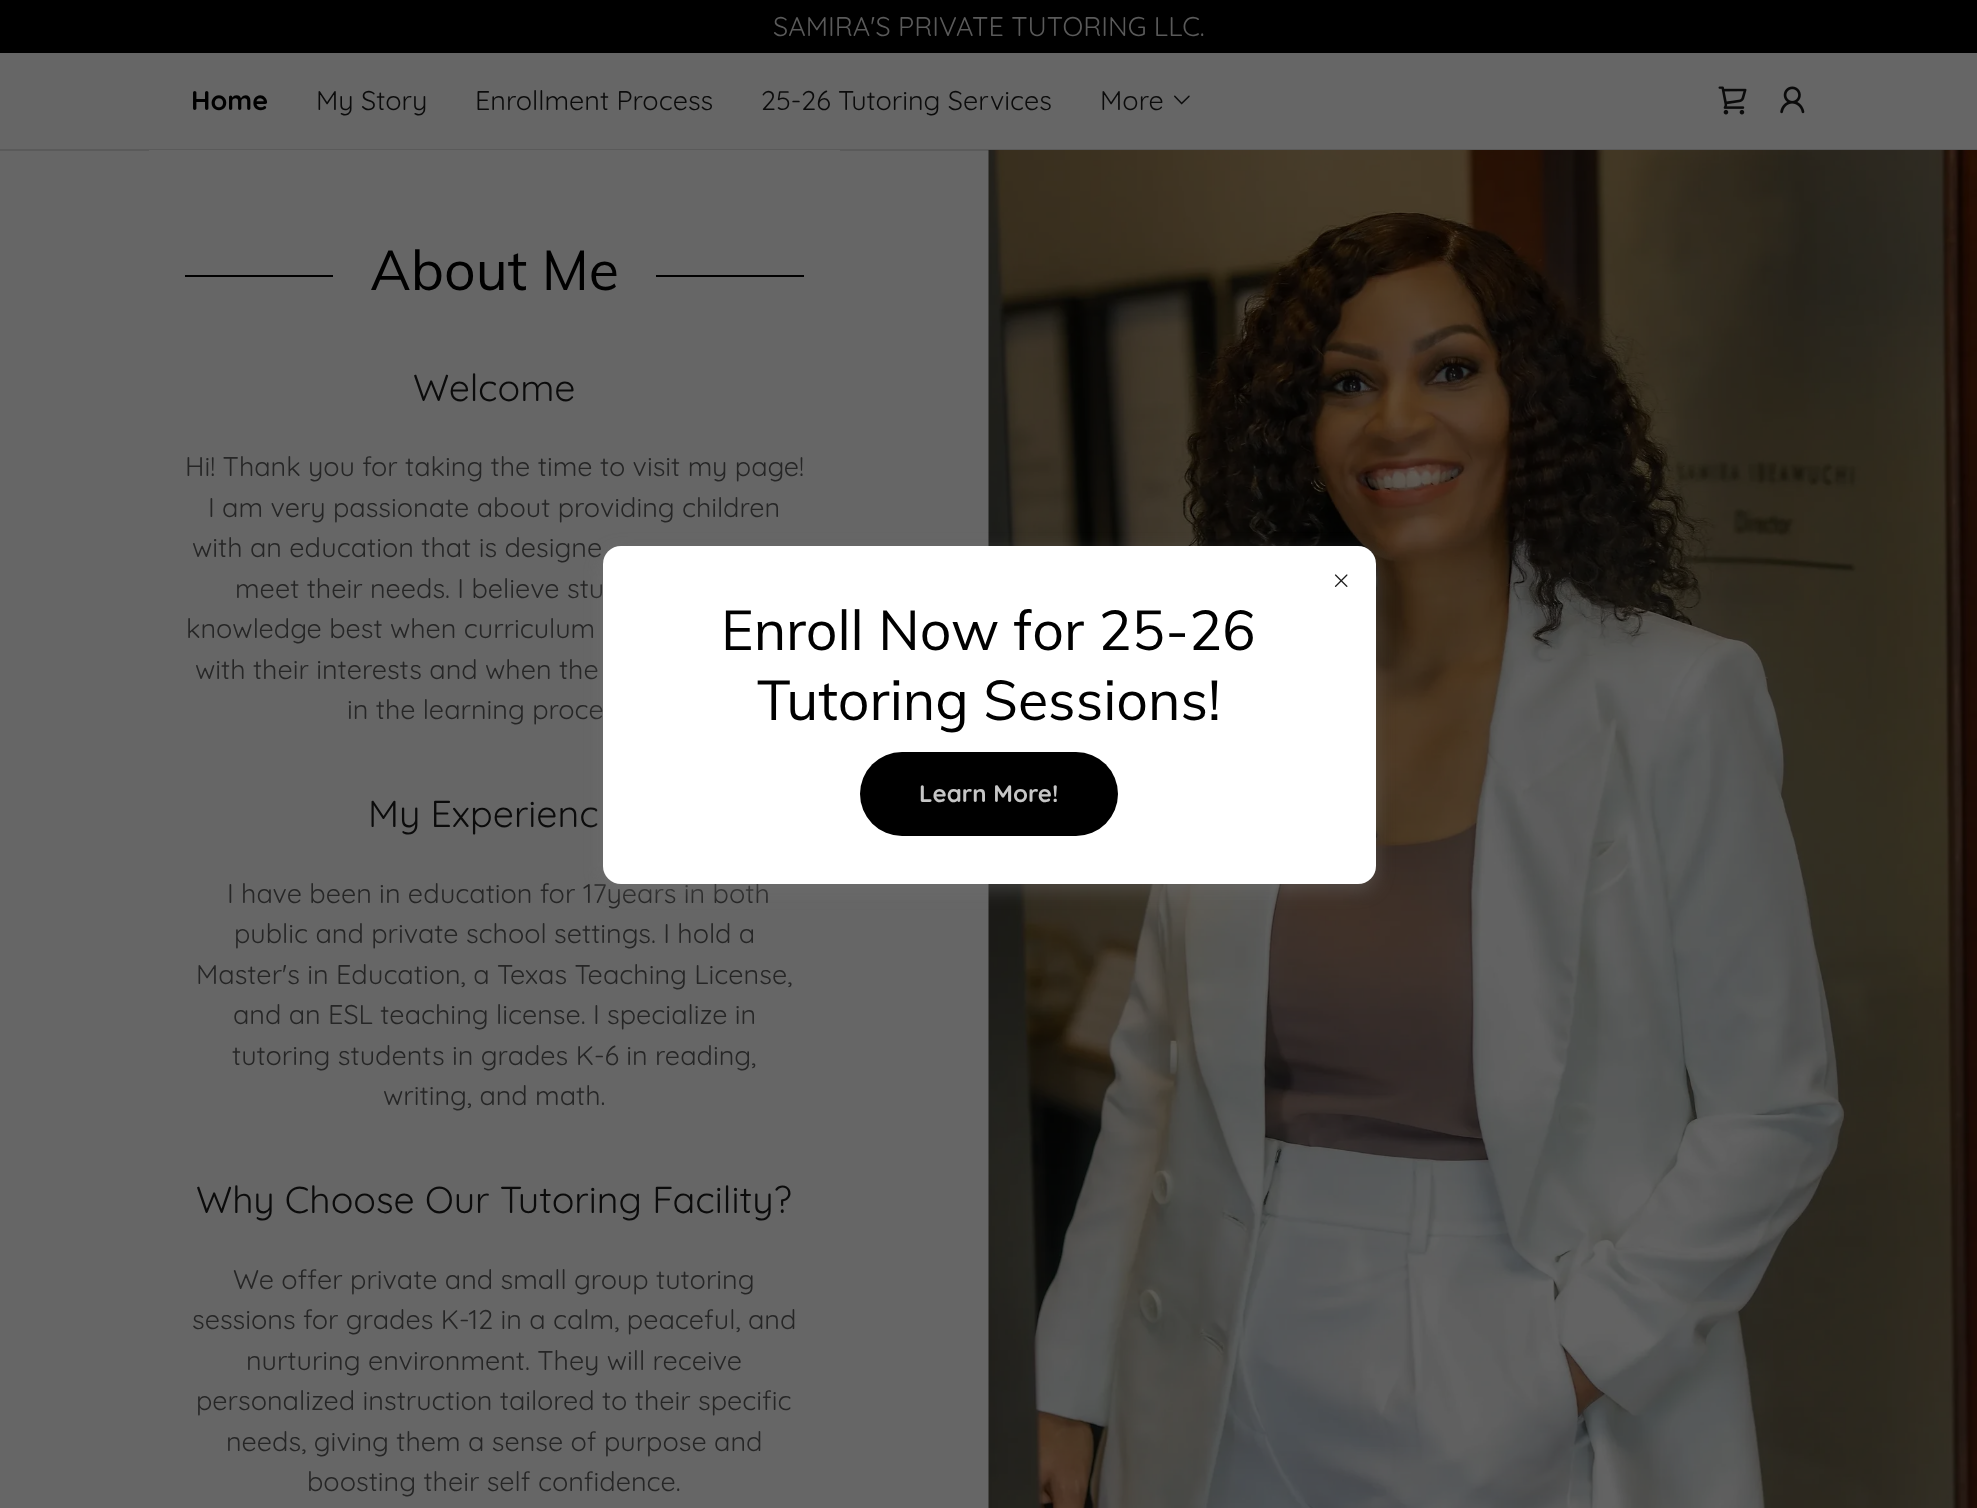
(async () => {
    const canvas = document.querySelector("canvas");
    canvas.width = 1977;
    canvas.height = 1508;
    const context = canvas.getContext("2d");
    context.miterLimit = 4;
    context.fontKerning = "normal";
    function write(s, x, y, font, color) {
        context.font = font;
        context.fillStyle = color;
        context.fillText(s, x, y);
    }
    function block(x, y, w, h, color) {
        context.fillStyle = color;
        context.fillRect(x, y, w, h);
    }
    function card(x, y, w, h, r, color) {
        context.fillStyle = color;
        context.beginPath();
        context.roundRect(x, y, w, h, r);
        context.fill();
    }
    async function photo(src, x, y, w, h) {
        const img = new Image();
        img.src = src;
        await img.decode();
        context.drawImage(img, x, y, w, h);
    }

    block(0, 0, 1977, 1508, "rgb(102, 102, 102)");
    block(0, 0, 1977, 53, "rgb(0, 0, 0)");
    write("SAMIRA'S PRIVATE TUTORING LLC.", 773, 36, "27px Quicksand", "rgb(90, 90, 90)");
    write("Home", 191, 110, "bold 27px Quicksand", "rgb(0, 0, 0)");
    write("My Story", 316, 110, "27px Quicksand", "rgb(11, 11, 11)");
    write("Enrollment Process", 475, 110, "27px Quicksand", "rgb(11, 11, 11)");
    write("25-26 Tutoring Services", 761, 110, "27px Quicksand", "rgb(11, 11, 11)");
    write("More", 1100, 110, "27px Quicksand", "rgb(11, 11, 11)");
    await photo("media/1.png", 1174, 95, 16, 10);
    await photo("media/2.png", 1718, 86, 29, 29);
    await photo("media/3.png", 1780, 86, 25, 28);
    block(0, 149, 1977, 2, "rgb(90, 90, 90)");
    block(149, 150, 691, 1, "rgb(102, 102, 102)");
    block(185, 275, 148, 2, "rgb(0, 0, 0)");
    write("About Me", 370, 290, "55.5px Muli", "rgb(0, 0, 0)");
    block(656, 275, 148, 2, "rgb(0, 0, 0)");
    write("Welcome", 413, 401, "37.5px Quicksand", "rgb(11, 11, 11)");
    write("Hi! Thank you for taking the time to visit my page!", 185, 476, "27px Quicksand", "rgb(38, 38, 38)");
    write("I am very passionate about providing children", 208, 517, "27px Quicksand", "rgb(38, 38, 38)");
    write("with an education that is designe", 192, 557, "27px Quicksand", "rgb(38, 38, 38)");
    write("meet their needs. I believe stu", 235, 598, "27px Quicksand", "rgb(38, 38, 38)");
    write("knowledge best when curriculum", 186, 638, "27px Quicksand", "rgb(38, 38, 38)");
    write("with their interests and when the", 195, 679, "27px Quicksand", "rgb(38, 38, 38)");
    write("in the learning proce", 347, 719, "27px Quicksand", "rgb(38, 38, 38)");
    write("My Experienc", 368, 827, "37.5px Quicksand", "rgb(11, 11, 11)");
    write("I have been in education for 17years in both", 227, 903, "27px Quicksand", "rgb(38, 38, 38)");
    write("public and private school settings. I hold a", 234, 943, "27px Quicksand", "rgb(38, 38, 38)");
    write("Master's in Education, a Texas Teaching License,", 196, 984, "27px Quicksand", "rgb(38, 38, 38)");
    write("and an ESL teaching license. I specialize in", 233, 1024, "27px Quicksand", "rgb(38, 38, 38)");
    write("tutoring students in grades K-6 in reading,", 232, 1065, "27px Quicksand", "rgb(38, 38, 38)");
    write("writing, and math.", 383, 1105, "27px Quicksand", "rgb(38, 38, 38)");
    write("Why Choose Our Tutoring Facility?", 196, 1213, "37.5px Quicksand", "rgb(11, 11, 11)");
    write("We offer private and small group tutoring", 233, 1289, "27px Quicksand", "rgb(38, 38, 38)");
    write("sessions for grades K-12 in a calm, peaceful, and", 192, 1329, "27px Quicksand", "rgb(38, 38, 38)");
    write("nurturing environment. They will receive", 246, 1370, "27px Quicksand", "rgb(38, 38, 38)");
    write("personalized instruction tailored to their specific", 196, 1410, "27px Quicksand", "rgb(38, 38, 38)");
    write("needs, giving them a sense of purpose and", 226, 1451, "27px Quicksand", "rgb(38, 38, 38)");
    write("boosting their self confidence.", 307, 1491, "27px Quicksand", "rgb(38, 38, 38)");
    await photo("media/4.png", 988, 150, 989, 1358);
    context.fillStyle = "rgba(117, 117, 117, 0.4)";
    context.filter = "blur(9px)";
    context.beginPath();
    context.roundRect(603, 552, 773, 338, 18);
    context.fill();
    context.filter = "none";
    card(603, 546, 773, 338, 18, "rgb(255, 255, 255)");
    await photo("media/5.png", 1334, 574, 14, 13);
    write("Enroll Now for 25-26", 721, 650, "55.5px Muli", "rgb(0, 0, 0)");
    write("Tutoring Sessions!", 757, 720, "55.5px Muli", "rgb(0, 0, 0)");
    card(860, 752, 258, 84, 42, "rgb(0, 0, 0)");
    write("Learn More!", 919, 802, "bold 24px Quicksand", "rgb(198, 198, 198)");
})();
